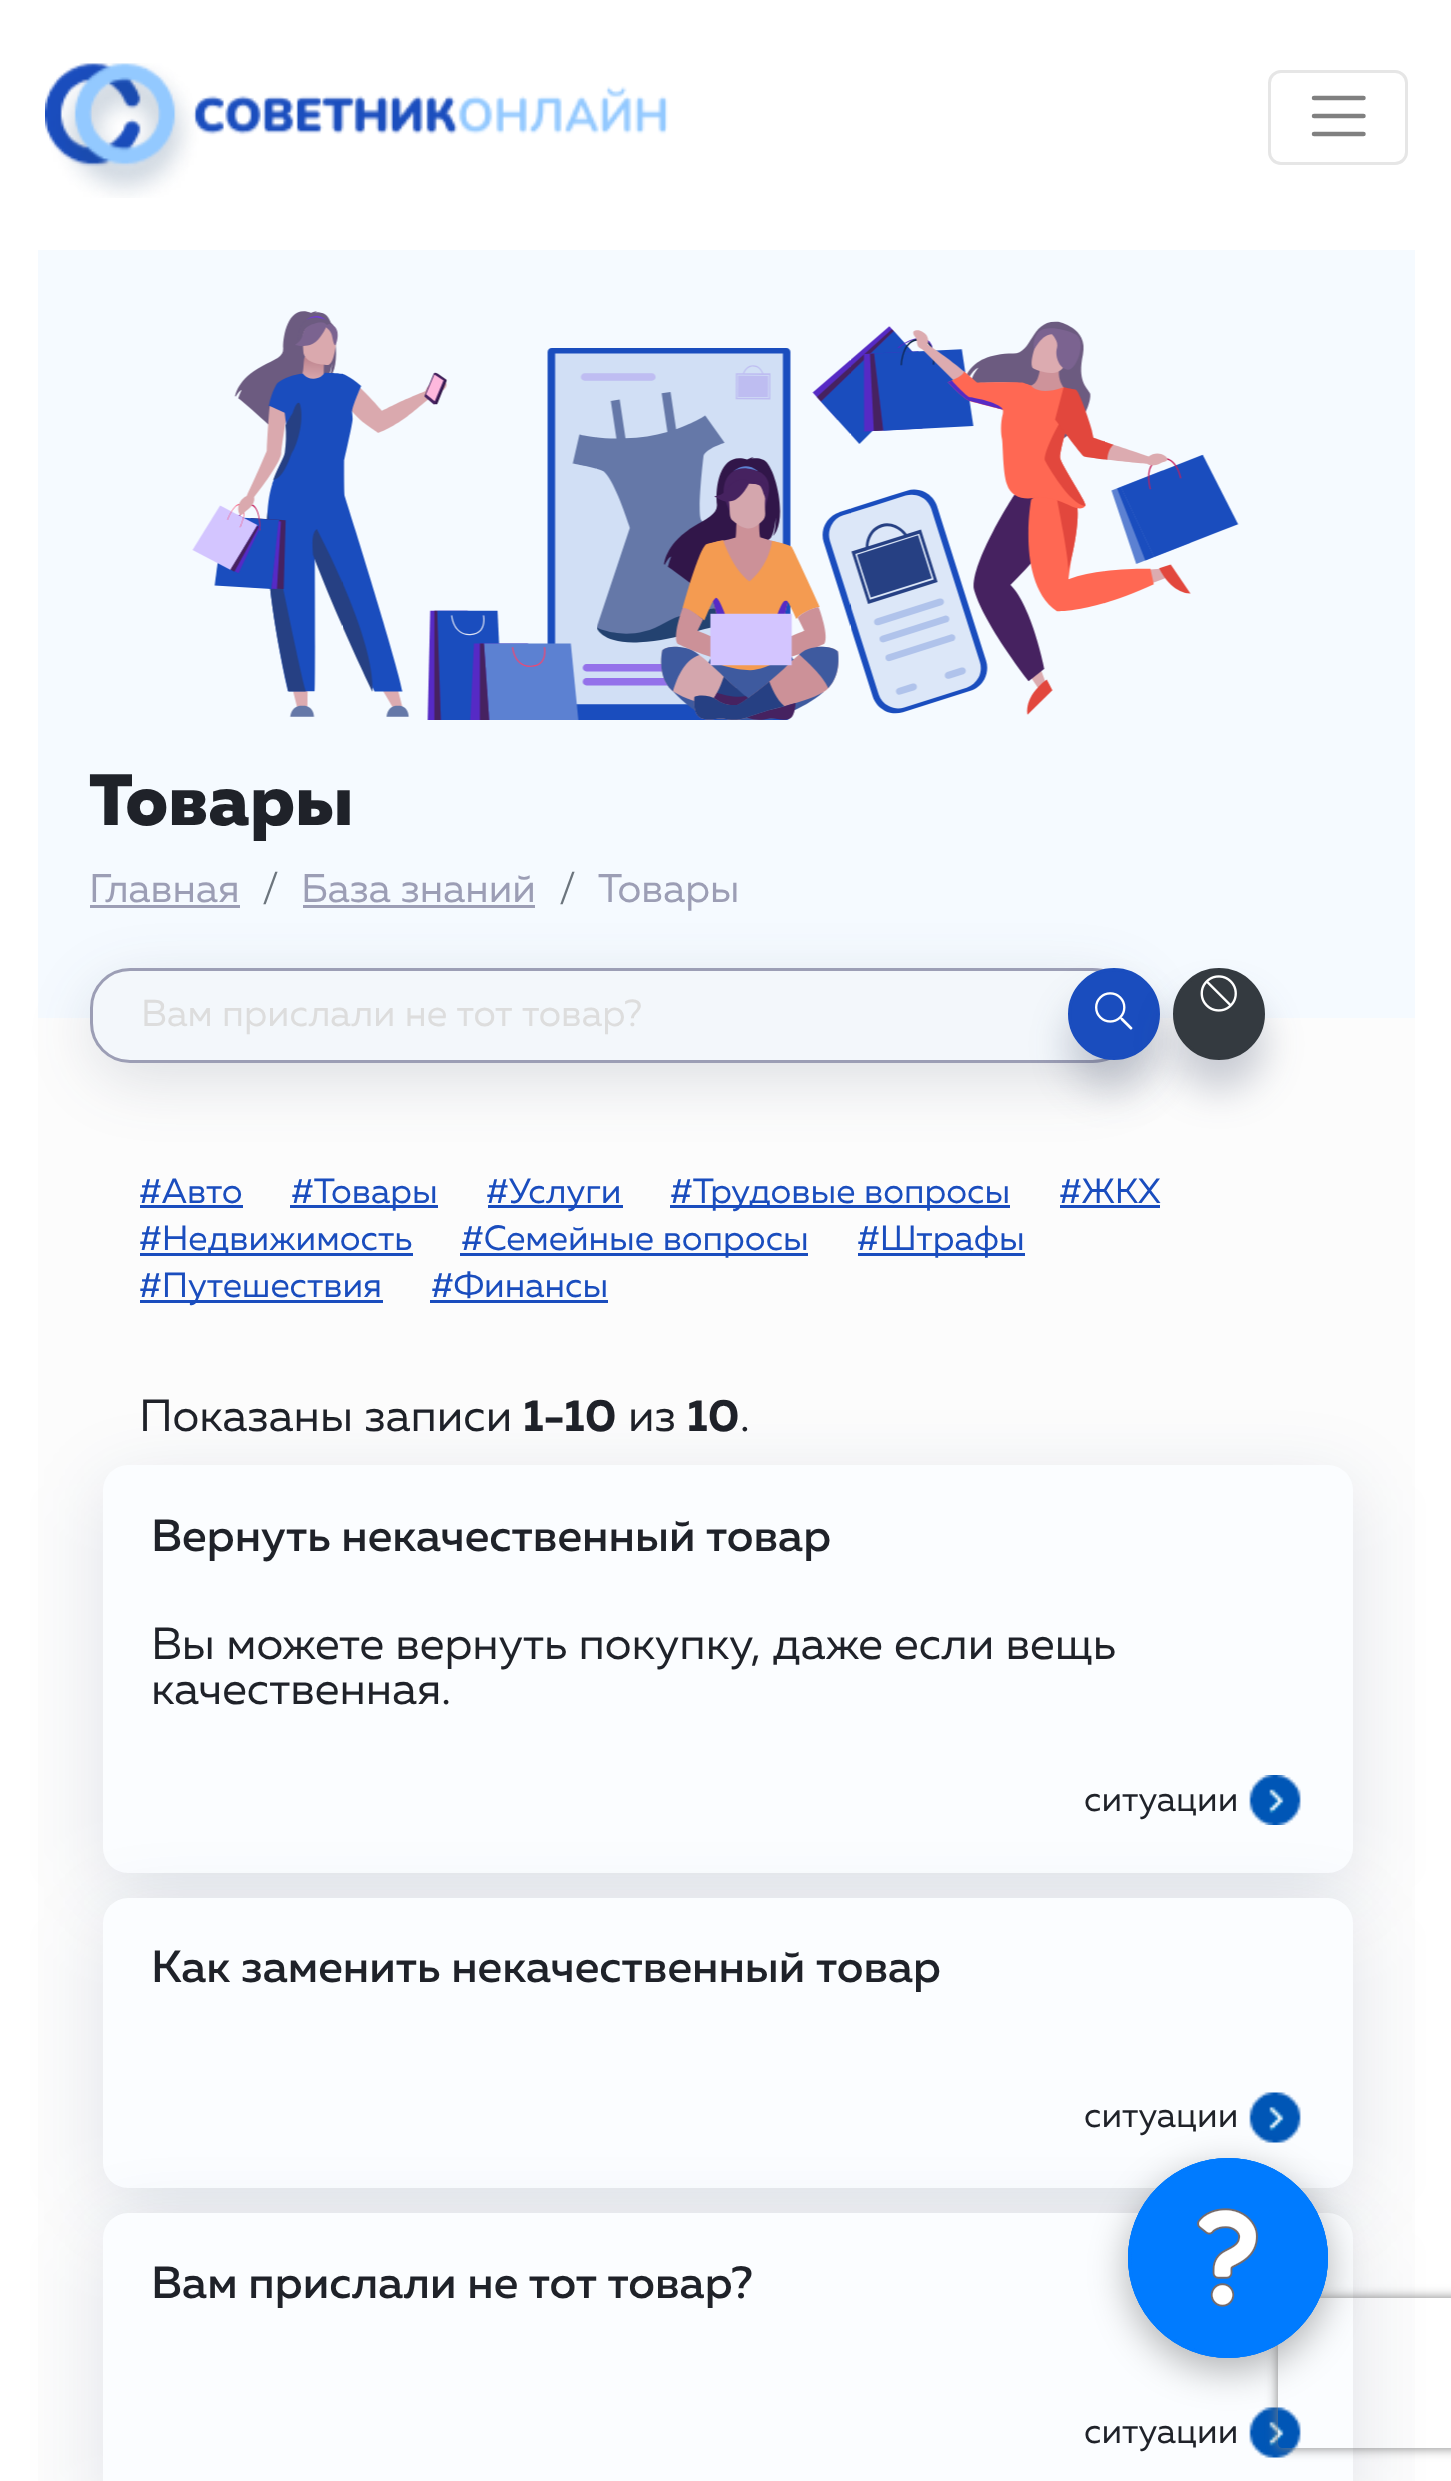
(async () => {
    const canvas = document.querySelector("canvas");
    canvas.width = 1451;
    canvas.height = 2481;
    const context = canvas.getContext("2d");
    context.miterLimit = 4;
    context.fontKerning = "normal";
    function write(s, x, y, font, color) {
        context.font = font;
        context.fillStyle = color;
        context.fillText(s, x, y);
    }
    function block(x, y, w, h, color) {
        context.fillStyle = color;
        context.fillRect(x, y, w, h);
    }
    function card(x, y, w, h, r, color) {
        context.fillStyle = color;
        context.beginPath();
        context.roundRect(x, y, w, h, r);
        context.fill();
    }
    async function photo(src, x, y, w, h) {
        const img = new Image();
        img.src = src;
        await img.decode();
        context.drawImage(img, x, y, w, h);
    }

    block(0, 0, 1451, 2481, "rgb(255, 255, 255)");
    await photo("media/1.png", 45, 63, 623, 135);
    context.beginPath();
    context.roundRect(1269.5, 71.5, 137, 92, 11.5);
    context.strokeStyle = "rgb(230, 230, 230)";
    context.lineWidth = 3;
    context.stroke();
    context.beginPath();
    context.moveTo(1314, 98);
    context.lineTo(1363.5, 98);
    context.moveTo(1314, 116);
    context.lineTo(1363.5, 116);
    context.moveTo(1314, 134);
    context.lineTo(1363.5, 134);
    context.strokeStyle = "rgb(128, 128, 128)";
    context.lineWidth = 4.5;
    context.lineCap = "round";
    context.stroke();
    block(38, 250, 1377, 768, "rgb(245, 250, 255)");
    await photo("media/2.png", 192, 311, 1047, 409);
    write("Товары", 89, 825, "800 72.5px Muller", "rgb(31, 34, 41)");
    write("Главная", 89, 902, "40px Muller", "rgb(156, 158, 181)");
    block(90, 905, 150, 3, "rgb(156, 158, 181)");
    write("/", 262, 902, "40px Muller", "rgb(108, 117, 125)");
    write("База знаний", 301, 902, "40px Muller", "rgb(156, 158, 181)");
    block(303, 905, 232, 3, "rgb(156, 158, 181)");
    write("/", 559, 902, "40px Muller", "rgb(108, 117, 125)");
    write("Товары", 598, 902, "40px Muller", "rgb(156, 158, 181)");
    block(38, 1018, 1377, 1463, "rgb(252, 252, 252)");
    context.fillStyle = "rgba(46, 60, 90, 0.15)";
    context.filter = "blur(31px)";
    context.beginPath();
    context.roundRect(90, 985, 1050, 95, 47.5);
    context.fill();
    context.filter = "none";
    context.fillStyle = "rgb(243, 247, 251)";
    context.beginPath();
    context.roundRect(91.5, 969.5, 1047, 92, [38.5, 46, 46, 38.5]);
    context.fill();
    context.strokeStyle = "rgb(156, 158, 181)";
    context.lineWidth = 3;
    context.stroke();
    write("Вам прислали не тот товар?", 141, 1026, "37.5px Muller", "rgb(221, 221, 221)");
    context.fillStyle = "rgba(46, 60, 90, 0.25)";
    context.filter = "blur(19px)";
    context.beginPath();
    context.roundRect(1068, 998, 92, 92, 46);
    context.fill();
    context.filter = "none";
    context.fillStyle = "rgb(26, 77, 190)";
    context.beginPath();
    context.arc(1114, 1014, 44.5, 0, Math.PI * 2);
    context.fill();
    context.strokeStyle = "rgb(26, 77, 190)";
    context.stroke();
    await photo("media/3.png", 1095, 992, 38, 38);
    context.fillStyle = "rgba(46, 60, 90, 0.25)";
    context.filter = "blur(19px)";
    context.beginPath();
    context.roundRect(1173, 998, 92, 92, 46);
    context.fill();
    context.filter = "none";
    context.fillStyle = "rgb(52, 58, 64)";
    context.beginPath();
    context.arc(1219, 1014, 44.5, 0, Math.PI * 2);
    context.fill();
    context.strokeStyle = "rgb(52, 58, 64)";
    context.stroke();
    await photo("media/4.png", 1200, 975, 37, 37);
    write("#Авто", 139, 1203, "35px Muller", "rgb(26, 77, 190)");
    block(140, 1205, 103, 3, "rgb(26, 77, 190)");
    block(290, 1205, 148, 3, "rgb(26, 77, 190)");
    write("#Товары", 291, 1203, "35px Muller", "rgb(26, 77, 190)");
    block(488, 1205, 135, 3, "rgb(26, 77, 190)");
    write("#Услуги", 486, 1203, "35px Muller", "rgb(26, 77, 190)");
    block(670, 1205, 340, 3, "rgb(26, 77, 190)");
    write("#Трудовые вопросы", 670, 1203, "35px Muller", "rgb(26, 77, 190)");
    write("#ЖКХ", 1059, 1203, "35px Muller", "rgb(26, 77, 190)");
    block(1060, 1205, 100, 3, "rgb(26, 77, 190)");
    block(140, 1253, 273, 3, "rgb(26, 77, 190)");
    write("#Недвижимость", 139, 1250, "35px Muller", "rgb(26, 77, 190)");
    block(460, 1253, 348, 3, "rgb(26, 77, 190)");
    write("#Семейные вопросы", 461, 1250, "35px Muller", "rgb(26, 77, 190)");
    block(858, 1253, 167, 3, "rgb(26, 77, 190)");
    write("#Штрафы", 857, 1250, "35px Muller", "rgb(26, 77, 190)");
    block(140, 1300, 243, 3, "rgb(26, 77, 190)");
    write("#Путешествия", 139, 1297, "35px Muller", "rgb(26, 77, 190)");
    write("#Финансы", 431, 1297, "35px Muller", "rgb(26, 77, 190)");
    block(430, 1300, 178, 3, "rgb(26, 77, 190)");
    write("Показаны записи", 139, 1431, "45px Muller", "rgb(31, 34, 41)");
    write("1-10", 523, 1431, "bold 45px Muller", "rgb(31, 34, 41)");
    write("из", 628, 1431, "45px Muller", "rgb(31, 34, 41)");
    write("10", 687, 1431, "bold 45px Muller", "rgb(31, 34, 41)");
    write(".", 740, 1431, "45px Muller", "rgb(31, 34, 41)");
    context.fillStyle = "rgba(13, 38, 92, 0.12)";
    context.filter = "blur(37.5px)";
    context.beginPath();
    context.roundRect(103, 1483, 1250, 407, 25);
    context.fill();
    context.filter = "none";
    card(103, 1465, 1250, 408, 25, "rgb(251, 253, 255)");
    write("Вернуть некачественный товар", 151, 1551, "500 45px Muller", "rgb(31, 34, 41)");
    write("Вы можете вернуть покупку, даже если вещь", 151, 1659, "45px Muller", "rgb(31, 34, 41)");
    write("качественная.", 151, 1704, "45px Muller", "rgb(31, 34, 41)");
    write("ситуации", 1084, 1811, "35px Muller", "rgb(31, 34, 41)");
    await photo("media/5.png", 1249, 1775, 52, 50);
    context.fillStyle = "rgba(13, 38, 92, 0.12)";
    context.filter = "blur(37.5px)";
    context.beginPath();
    context.roundRect(103, 1915, 1250, 290, 25);
    context.fill();
    context.filter = "none";
    card(103, 1898, 1250, 290, 25, "rgb(251, 253, 255)");
    write("Как заменить некачественный товар", 151, 1982, "500 45px Muller", "rgb(31, 34, 41)");
    write("ситуации", 1084, 2127, "35px Muller", "rgb(31, 34, 41)");
    await photo("media/6.png", 1249, 2092, 52, 51);
    context.fillStyle = "rgba(13, 38, 92, 0.12)";
    context.filter = "blur(37.5px)";
    context.beginPath();
    context.roundRect(103, 2230, 1250, 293, 25);
    context.fill();
    context.filter = "none";
    card(103, 2213, 1250, 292, 25, "rgb(251, 253, 255)");
    write("Вам прислали не тот товар?", 151, 2298, "500 45px Muller", "rgb(31, 34, 41)");
    write("ситуации", 1084, 2443, "35px Muller", "rgb(31, 34, 41)");
    await photo("media/6.png", 1249, 2407, 52, 51);
    context.fillStyle = "rgba(0, 0, 0, 0.3)";
    context.filter = "blur(19px)";
    context.beginPath();
    context.roundRect(1128, 2170, 200, 200, 100);
    context.fill();
    context.filter = "none";
    context.save();
    context.beginPath();
    context.moveTo(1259, 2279);
    context.lineTo(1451, 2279);
    context.lineTo(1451, 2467);
    context.lineTo(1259, 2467);
    context.closePath();
    context.moveTo(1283, 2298);
    context.lineTo(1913, 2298);
    context.bezierCurveTo(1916, 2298, 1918, 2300, 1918, 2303);
    context.lineTo(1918, 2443);
    context.bezierCurveTo(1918, 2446, 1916, 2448, 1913, 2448);
    context.lineTo(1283, 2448);
    context.bezierCurveTo(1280, 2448, 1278, 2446, 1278, 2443);
    context.lineTo(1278, 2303);
    context.bezierCurveTo(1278, 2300, 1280, 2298, 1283, 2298);
    context.closePath();
    context.clip("evenodd");
    context.fillStyle = "rgb(128, 128, 128)";
    context.filter = "blur(6px)";
    context.beginPath();
    context.roundRect(1278, 2298, 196, 150, 5);
    context.fill();
    context.filter = "none";
    context.restore();
    context.fillStyle = "rgb(0, 123, 255)";
    context.beginPath();
    context.arc(1228, 2258, 98.5, 0, Math.PI * 2);
    context.fill();
    context.strokeStyle = "rgb(0, 123, 255)";
    context.stroke();
    context.beginPath();
    context.arc(1228, 2258, 98.5, 0, Math.PI * 2);
    context.stroke();
    context.beginPath();
    context.arc(1228, 2258, 98.5, 0, Math.PI * 2);
    context.stroke();
    await photo("media/7.png", 1197, 2208, 61, 99);
})();
